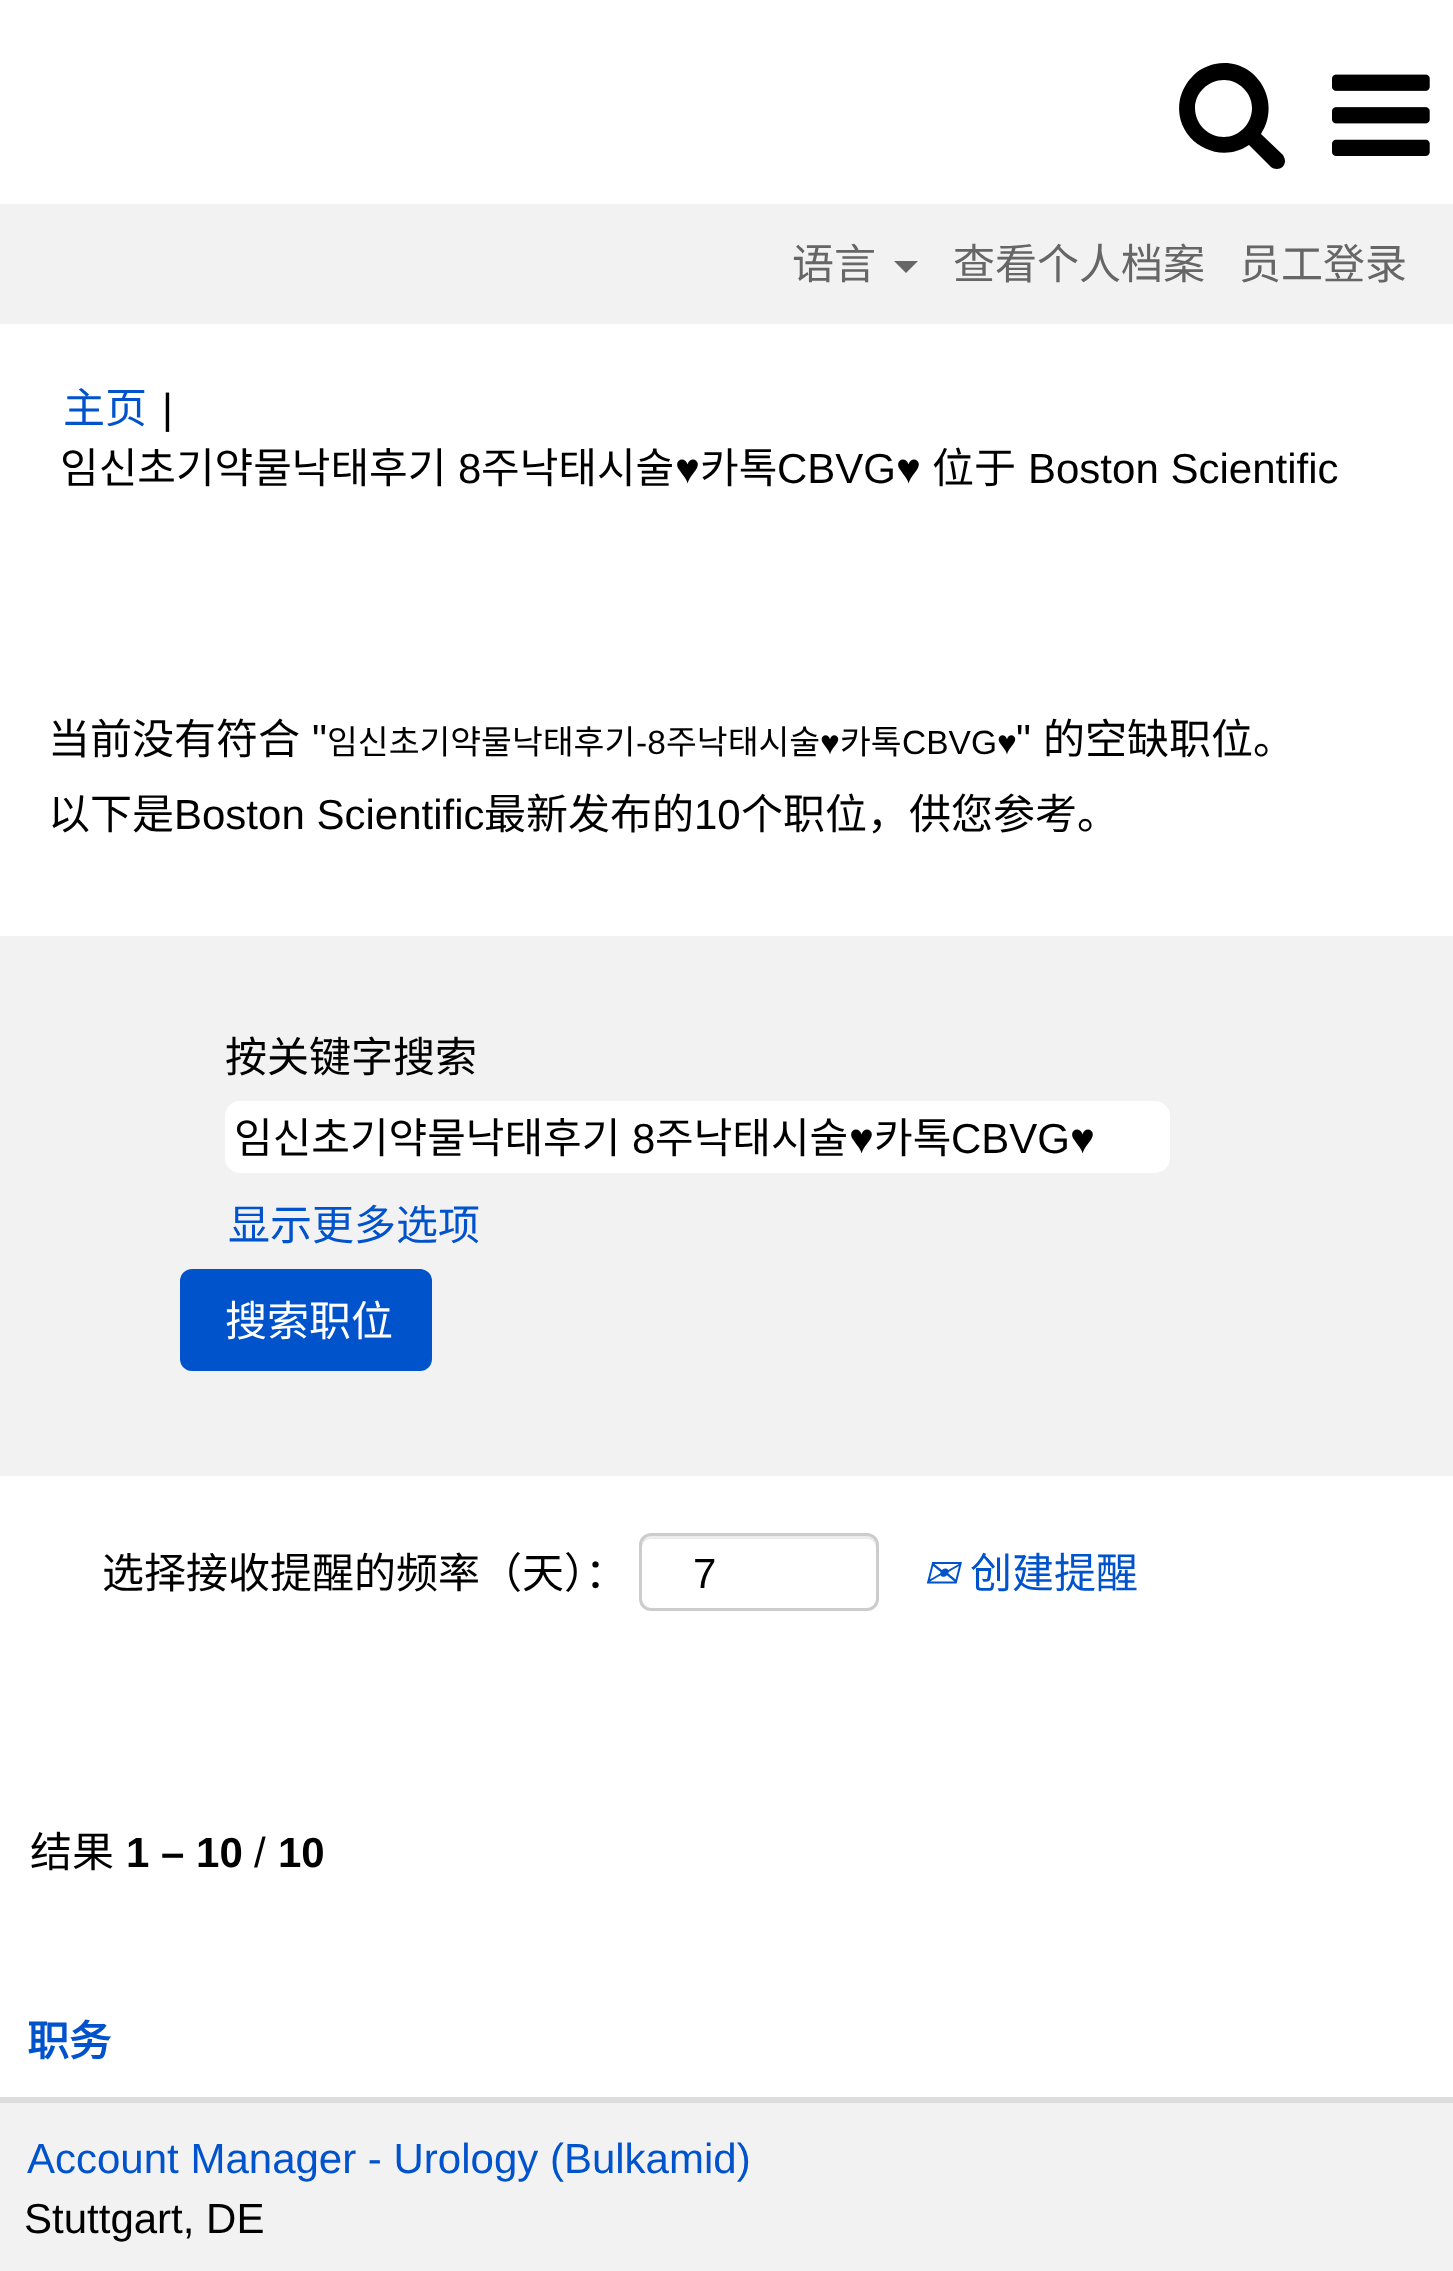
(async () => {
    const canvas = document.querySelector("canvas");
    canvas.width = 1453;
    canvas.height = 2271;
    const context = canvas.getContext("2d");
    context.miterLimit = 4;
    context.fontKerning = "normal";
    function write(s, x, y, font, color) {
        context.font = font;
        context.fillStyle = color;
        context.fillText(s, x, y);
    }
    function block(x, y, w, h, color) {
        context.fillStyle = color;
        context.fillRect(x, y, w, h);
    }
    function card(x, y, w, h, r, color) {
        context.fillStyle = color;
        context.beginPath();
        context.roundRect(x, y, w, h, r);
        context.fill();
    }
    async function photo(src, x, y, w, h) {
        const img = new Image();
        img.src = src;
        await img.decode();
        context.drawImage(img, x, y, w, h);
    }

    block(0, 0, 1453, 2271, "rgb(255, 255, 255)");
    context.fillStyle = "rgb(0, 0, 0)";
    context.beginPath();
    context.moveTo(1252, 108);
    context.bezierCurveTo(1252, 124, 1239, 137, 1224, 137);
    context.bezierCurveTo(1208, 137, 1195, 124, 1195, 108);
    context.bezierCurveTo(1195, 93, 1208, 80, 1224, 80);
    context.bezierCurveTo(1239, 80, 1252, 93, 1252, 108);
    context.closePath();
    context.moveTo(1285, 161);
    context.bezierCurveTo(1285, 159, 1284, 157, 1283, 155);
    context.lineTo(1261, 134);
    context.bezierCurveTo(1283, 101, 1255, 56, 1215, 64);
    context.bezierCurveTo(1206, 66, 1198, 70, 1192, 77);
    context.bezierCurveTo(1186, 83, 1182, 91, 1180, 99);
    context.bezierCurveTo(1172, 139, 1217, 167, 1249, 145);
    context.lineTo(1271, 167);
    context.bezierCurveTo(1272, 168, 1275, 169, 1277, 169);
    context.bezierCurveTo(1281, 169, 1285, 166, 1285, 161);
    context.closePath();
    context.fill();
    await photo("media/1.png", 1332, 74, 98, 82);
    block(0, 204, 1453, 120, "rgb(242, 242, 242)");
    write("语言", 792, 279, "42px Noto Sans CJK SC", "rgb(102, 102, 102)");
    context.beginPath();
    context.moveTo(894, 261);
    context.lineTo(918, 261);
    context.lineTo(906, 273);
    context.closePath();
    context.fill();
    write("查看个人档案", 953, 279, "42px Noto Sans CJK SC", "rgb(102, 102, 102)");
    write("员工登录", 1239, 279, "42px Noto Sans CJK SC", "rgb(102, 102, 102)");
    write("主页", 63, 423, "42px Noto Sans CJK SC", "rgb(1, 83, 204)");
    write("|", 162, 423, "42px Liberation Sans", "rgb(0, 0, 0)");
    write("임신초기약물낙태후기", 60, 483, "42px Noto Sans CJK SC", "rgb(0, 0, 0)");
    write("8", 458, 483, "42px Liberation Sans", "rgb(0, 0, 0)");
    write("주낙태시술", 481, 483, "42px Noto Sans CJK SC", "rgb(0, 0, 0)");
    write("♥", 675, 483, "42px Liberation Sans", "rgb(0, 0, 0)");
    write("카톡", 700, 483, "42px Noto Sans CJK SC", "rgb(0, 0, 0)");
    write("CBVG♥", 777, 483, "42px Liberation Sans", "rgb(0, 0, 0)");
    write("位于", 932, 483, "42px Noto Sans CJK SC", "rgb(0, 0, 0)");
    write("Boston Scientific", 1028, 483, "42px Liberation Sans", "rgb(0, 0, 0)");
    write("当前没有符合", 48, 754, "42px Noto Sans CJK SC", "rgb(0, 0, 0)");
    write("\"", 312, 754, "42px Liberation Sans", "rgb(0, 0, 0)");
    write("임신초기약물낙태후기", 327, 754, "33.5px Noto Sans CJK SC", "rgb(0, 0, 0)");
    write("-8", 636, 754, "33.5px Liberation Sans", "rgb(0, 0, 0)");
    write("주낙태시술", 666, 754, "33.5px Noto Sans CJK SC", "rgb(0, 0, 0)");
    write("♥", 820, 754, "33.5px Liberation Sans", "rgb(0, 0, 0)");
    write("카톡", 840, 754, "33.5px Noto Sans CJK SC", "rgb(0, 0, 0)");
    write("CBVG♥", 902, 754, "33.5px Liberation Sans", "rgb(0, 0, 0)");
    write("\"", 1016, 754, "42px Liberation Sans", "rgb(0, 0, 0)");
    write("的空缺职位。", 1043, 754, "42px Noto Sans CJK SC", "rgb(0, 0, 0)");
    write("以下是", 48, 829, "42px Noto Sans CJK SC", "rgb(0, 0, 0)");
    write("Boston Scientific", 174, 829, "42px Liberation Sans", "rgb(0, 0, 0)");
    write("最新发布的", 484, 829, "42px Noto Sans CJK SC", "rgb(0, 0, 0)");
    write("10", 694, 829, "42px Liberation Sans", "rgb(0, 0, 0)");
    write("个职位，供您参考。", 741, 829, "42px Noto Sans CJK SC", "rgb(0, 0, 0)");
    block(0, 936, 1453, 540, "rgb(242, 242, 242)");
    write("按关键字搜索", 225, 1072, "42px Noto Sans CJK SC", "rgb(0, 0, 0)");
    card(225, 1101, 945, 72, 15, "rgb(255, 255, 255)");
    write("임신초기약물낙태후기", 234, 1153, "42px Noto Sans CJK SC", "rgb(0, 0, 0)");
    write("8", 632, 1153, "42px Liberation Sans", "rgb(0, 0, 0)");
    write("주낙태시술", 655, 1153, "42px Noto Sans CJK SC", "rgb(0, 0, 0)");
    write("♥", 849, 1153, "42px Liberation Sans", "rgb(0, 0, 0)");
    write("카톡", 874, 1153, "42px Noto Sans CJK SC", "rgb(0, 0, 0)");
    write("CBVG♥", 951, 1153, "42px Liberation Sans", "rgb(0, 0, 0)");
    write("显示更多选项", 228, 1240, "42px Noto Sans CJK SC", "rgb(1, 83, 204)");
    card(180, 1269, 252, 102, 12, "rgb(1, 83, 204)");
    write("搜索职位", 225, 1336, "42px Noto Sans CJK SC", "rgb(255, 255, 255)");
    write("选择接收提醒的频率（天）：", 102, 1588, "42px Noto Sans CJK SC", "rgb(0, 0, 0)");
    context.fillStyle = "rgb(236, 236, 236)";
    context.beginPath();
    context.moveTo(651, 1539);
    context.lineTo(867, 1539);
    context.bezierCurveTo(872, 1539, 876, 1543, 876, 1548);
    context.lineTo(876, 1545);
    context.bezierCurveTo(876, 1540, 872, 1536, 867, 1536);
    context.lineTo(651, 1536);
    context.bezierCurveTo(646, 1536, 642, 1540, 642, 1545);
    context.lineTo(642, 1548);
    context.bezierCurveTo(642, 1543, 646, 1539, 651, 1539);
    context.closePath();
    context.fill();
    context.beginPath();
    context.roundRect(640.5, 1534.5, 237, 75, 10.5);
    context.strokeStyle = "rgb(204, 204, 204)";
    context.lineWidth = 3;
    context.stroke();
    write("7", 693, 1588, "42px Liberation Sans", "rgb(0, 0, 0)");
    write("✉", 923, 1588, "italic 42px DejaVu Sans", "rgb(1, 83, 204)");
    write("创建提醒", 970, 1588, "42px Noto Sans CJK SC", "rgb(1, 83, 204)");
    write("结果", 30, 1867, "42px Noto Sans CJK SC", "rgb(0, 0, 0)");
    write("1 – 10", 126, 1867, "bold 42px Liberation Sans", "rgb(0, 0, 0)");
    write("/", 254, 1867, "42px Liberation Sans", "rgb(0, 0, 0)");
    write("10", 278, 1867, "bold 42px Liberation Sans", "rgb(0, 0, 0)");
    block(0, 2097, 1453, 6, "rgb(221, 221, 221)");
    write("职务", 27, 2056, "bold 42px Noto Sans CJK SC", "rgb(1, 83, 204)");
    block(0, 2103, 1453, 168, "rgb(242, 242, 242)");
    write("Account Manager - Urology (Bulkamid)", 27, 2173, "42px Liberation Sans", "rgb(1, 83, 204)");
    write("Stuttgart, DE", 24, 2233, "42px Liberation Sans", "rgb(0, 0, 0)");
})();
